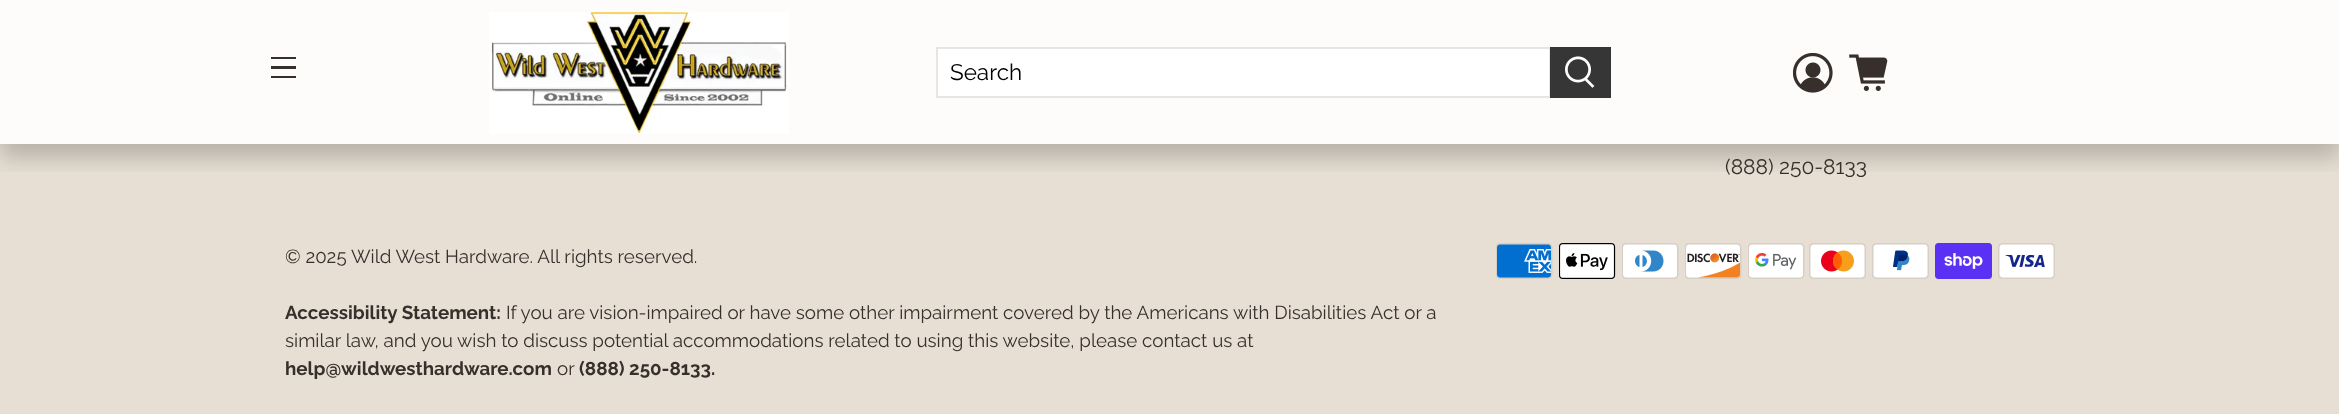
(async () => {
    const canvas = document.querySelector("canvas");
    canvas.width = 2339;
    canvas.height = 414;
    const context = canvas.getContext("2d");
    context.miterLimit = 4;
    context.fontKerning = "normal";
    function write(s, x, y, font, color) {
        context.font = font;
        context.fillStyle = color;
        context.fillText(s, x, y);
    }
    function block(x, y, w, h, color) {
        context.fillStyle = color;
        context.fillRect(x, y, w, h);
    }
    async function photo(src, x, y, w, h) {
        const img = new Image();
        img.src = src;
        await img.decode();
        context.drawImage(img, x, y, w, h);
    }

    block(0, 0, 2339, 414, "rgb(231, 223, 212)");
    context.save();
    context.beginPath();
    context.rect(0, 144, 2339, 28);
    context.clip();
    context.fillStyle = "rgba(0, 0, 0, 0.2)";
    context.filter = "blur(11px)";
    context.beginPath();
    context.rect(0, 14, 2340, 144);
    context.fill();
    context.filter = "none";
    context.restore();
    block(0, 0, 2339, 144, "rgba(255, 255, 255, 0.9)");
    block(271, 57, 25, 2, "rgb(54, 47, 43)");
    block(271, 66, 25, 3, "rgb(54, 47, 43)");
    block(271, 76, 25, 2, "rgb(54, 47, 43)");
    await photo("media/1.png", 489, 12, 300, 122);
    context.fillStyle = "rgb(255, 255, 255)";
    context.beginPath();
    context.rect(937, 48, 613, 49);
    context.fill();
    context.strokeStyle = "rgb(229, 229, 229)";
    context.lineWidth = 2;
    context.stroke();
    write("Search", 950, 80, "22.5px Raleway", "rgb(0, 0, 0)");
    block(1550, 47, 61, 51, "rgb(54, 54, 54)");
    await photo("media/2.png", 1565, 56, 30, 32);
    await photo("media/3.png", 1793, 53, 40, 40);
    await photo("media/4.png", 1849, 54, 39, 37);
    write("(888) 250-8133", 1725, 174, "21px Raleway", "rgb(54, 47, 43)");
    write("© 2025", 285, 263, "18.75px Raleway", "rgb(54, 47, 43)");
    write("Wild West Hardware. All rights reserved.", 351, 263, "18.75px Raleway", "rgb(54, 47, 43)");
    write("Accessibility Statement:", 285, 319, "bold 18.75px Raleway", "rgb(54, 47, 43)");
    write("If you are vision-impaired or have some other impairment covered by the Americans with Disabilities Act or a", 506, 319, "18.75px Raleway", "rgb(54, 47, 43)");
    write("similar law, and you wish to discuss potential accommodations related to using this website, please contact us at", 285, 347, "18.75px Raleway", "rgb(54, 47, 43)");
    write("help@wildwesthardware.com", 285, 375, "bold 18.75px Raleway", "rgb(54, 47, 43)");
    write("or", 557, 375, "18.75px Raleway", "rgb(54, 47, 43)");
    write("(888) 250-8133.", 579, 375, "bold 18.75px Raleway", "rgb(54, 47, 43)");
    await photo("media/5.png", 1496, 243, 57, 36);
    await photo("media/6.png", 1559, 243, 57, 36);
    await photo("media/7.png", 1622, 243, 57, 36);
    await photo("media/8.png", 1685, 243, 57, 36);
    await photo("media/9.png", 1748, 243, 57, 36);
    await photo("media/10.png", 1809, 243, 57, 36);
    await photo("media/11.png", 1872, 243, 57, 36);
    await photo("media/12.png", 1935, 243, 57, 36);
    await photo("media/13.png", 1998, 243, 57, 36);
})();
